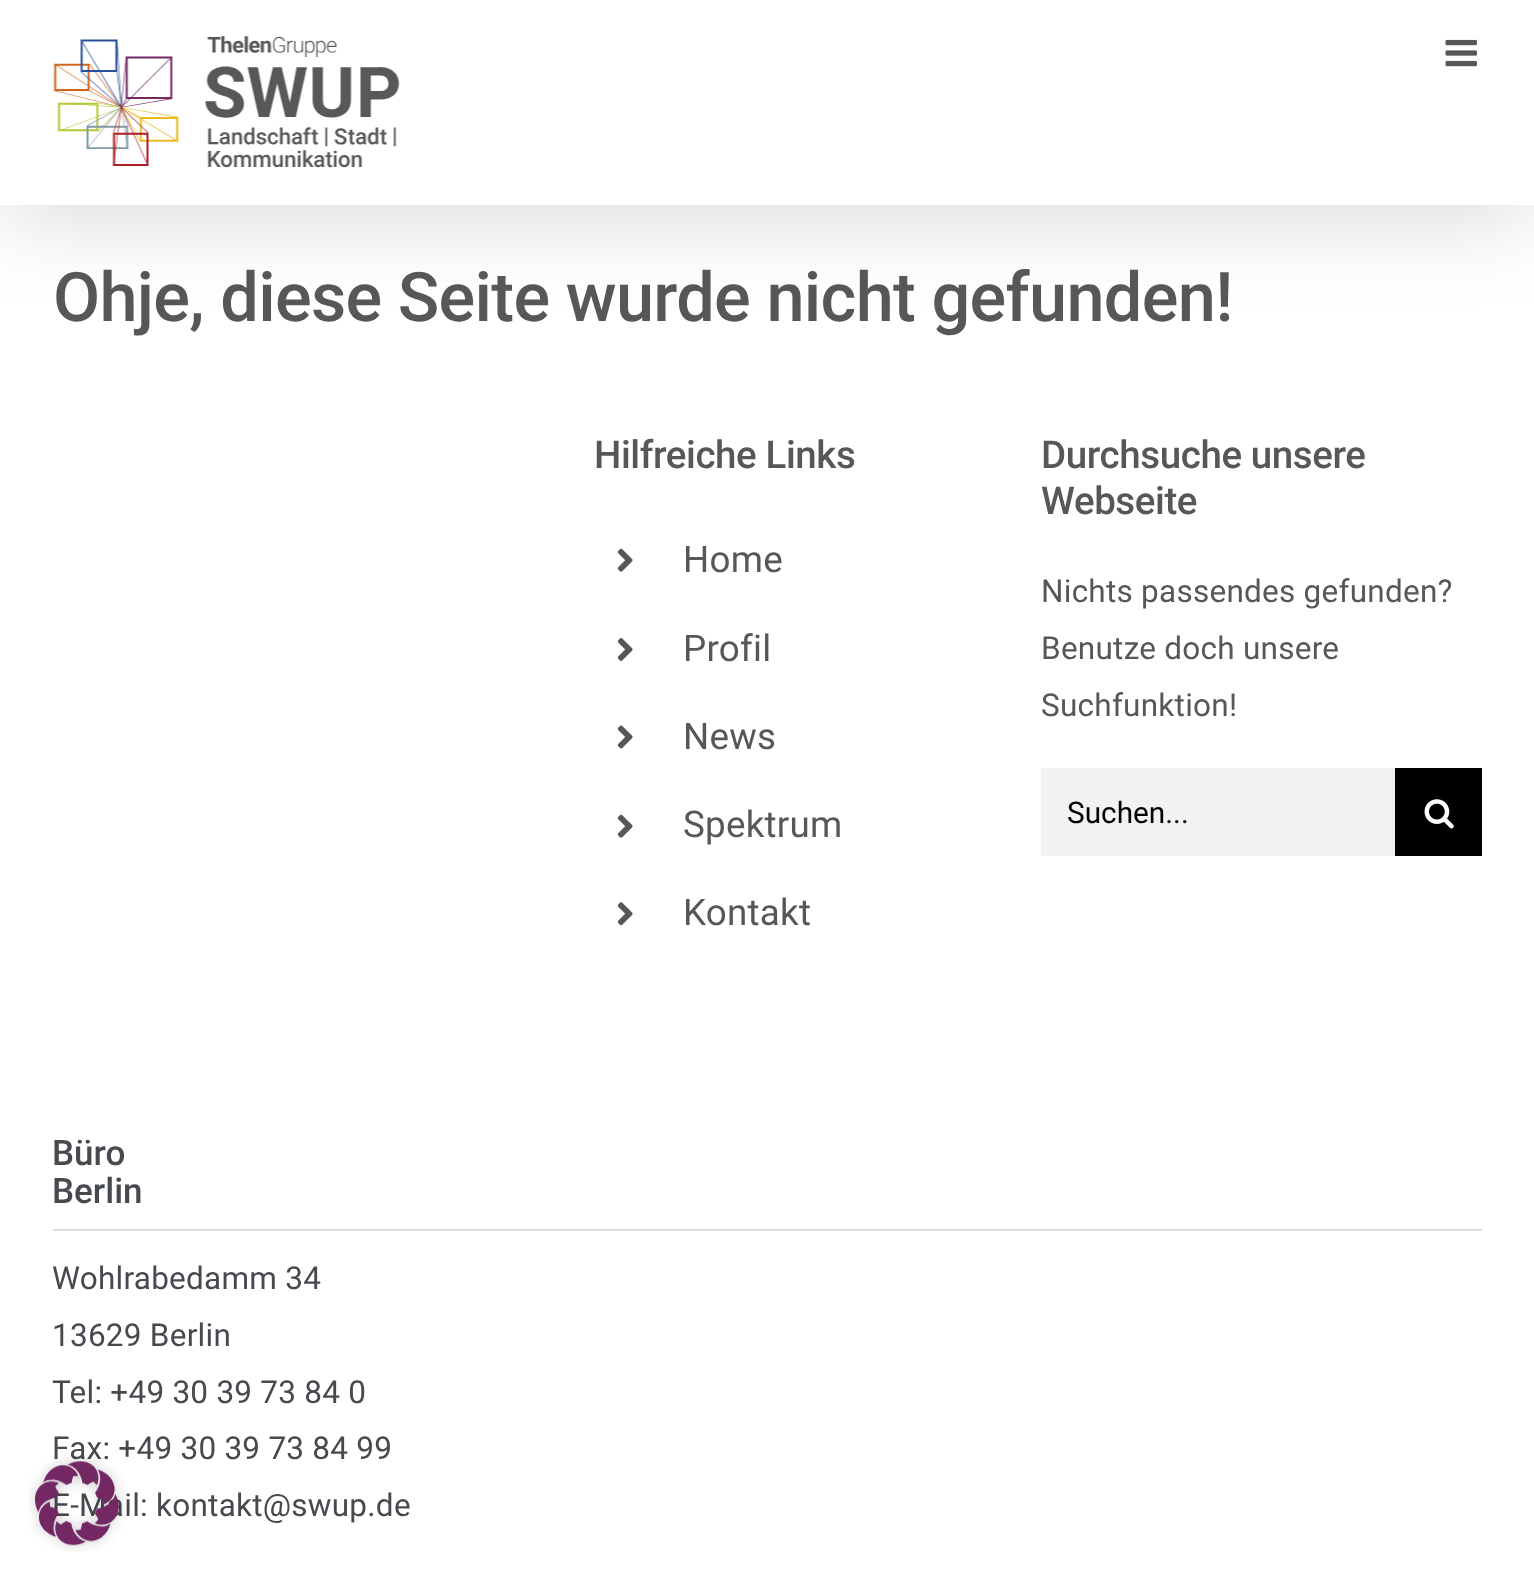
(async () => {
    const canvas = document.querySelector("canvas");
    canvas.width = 1534;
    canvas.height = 1579;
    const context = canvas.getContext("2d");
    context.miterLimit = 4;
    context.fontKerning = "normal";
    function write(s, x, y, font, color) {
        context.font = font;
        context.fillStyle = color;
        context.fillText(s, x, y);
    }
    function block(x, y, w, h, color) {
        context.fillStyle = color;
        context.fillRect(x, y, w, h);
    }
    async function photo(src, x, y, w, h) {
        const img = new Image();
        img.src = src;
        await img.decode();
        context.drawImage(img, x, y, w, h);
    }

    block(0, 0, 1534, 1579, "rgb(255, 255, 255)");
    context.fillStyle = "rgba(0, 0, 0, 0.14)";
    context.filter = "blur(44px)";
    context.beginPath();
    context.rect(4, 21, 1527, 198);
    context.fill();
    context.filter = "none";
    block(0, 0, 1534, 205, "rgb(255, 255, 255)");
    await photo("media/1.png", 53, 36, 347, 132);
    await photo("media/2.png", 1445, 39, 32, 28);
    context.letterSpacing = "-0.7px";
    write("Ohje, diese Seite wurde nicht gefunden!", 53, 321, "500 68.5px Roboto", "rgb(87, 87, 86)");
    context.letterSpacing = "-0.4px";
    write("Hilfreiche Links", 594, 468, "500 38.5px Roboto", "rgb(87, 87, 86)");
    await photo("media/3.png", 617, 548, 16, 24);
    context.letterSpacing = "0.25px";
    write("Home", 683, 572, "36.75px Roboto", "rgb(87, 87, 86)");
    await photo("media/4.png", 617, 638, 16, 23);
    write("Profil", 683, 661, "36.75px Roboto", "rgb(87, 87, 86)");
    await photo("media/5.png", 617, 725, 16, 24);
    write("News", 683, 749, "36.75px Roboto", "rgb(87, 87, 86)");
    await photo("media/3.png", 617, 814, 16, 24);
    write("Spektrum", 683, 837, "36.75px Roboto", "rgb(87, 87, 86)");
    await photo("media/6.png", 617, 902, 16, 24);
    write("Kontakt", 683, 925, "36.75px Roboto", "rgb(87, 87, 86)");
    context.letterSpacing = "-0.4px";
    write("Durchsuche unsere", 1041, 468, "500 38.5px Roboto", "rgb(87, 87, 86)");
    write("Webseite", 1041, 514, "500 38.5px Roboto", "rgb(87, 87, 86)");
    context.letterSpacing = "0.25px";
    write("Nichts passendes gefunden?", 1041, 602, "31.5px Roboto", "rgb(87, 87, 86)");
    write("Benutze doch unsere", 1041, 659, "31.5px Roboto", "rgb(87, 87, 86)");
    write("Suchfunktion!", 1041, 716, "31.5px Roboto", "rgb(87, 87, 86)");
    block(1041, 768, 354, 88, "rgb(242, 242, 242)");
    context.letterSpacing = "0px";
    write("Suchen...", 1067, 823, "29.75px Roboto", "rgb(3, 3, 3)");
    block(1395, 768, 87, 88, "rgb(0, 0, 0)");
    await photo("media/7.png", 1424, 799, 30, 30);
    write("Büro", 52, 1165, "500 35px Roboto", "rgb(70, 74, 79)");
    write("Berlin", 52, 1203, "500 35px Roboto", "rgb(70, 74, 79)");
    block(53, 1229, 1429, 2, "rgb(221, 221, 221)");
    context.letterSpacing = "0.25px";
    write("Wohlrabedamm 34", 52, 1289, "31.5px Roboto", "rgb(70, 74, 79)");
    write("13629 Berlin", 52, 1346, "31.5px Roboto", "rgb(70, 74, 79)");
    write("Tel: +49 30 39 73 84 0", 52, 1403, "31.5px Roboto", "rgb(70, 74, 79)");
    write("Fax: +49 30 39 73 84 99", 52, 1459, "31.5px Roboto", "rgb(70, 74, 79)");
    write("E-Mail: kontakt@swup.de", 52, 1516, "31.5px Roboto", "rgb(70, 74, 79)");
    await photo("media/8.png", 28, 1454, 98, 98);
})();
